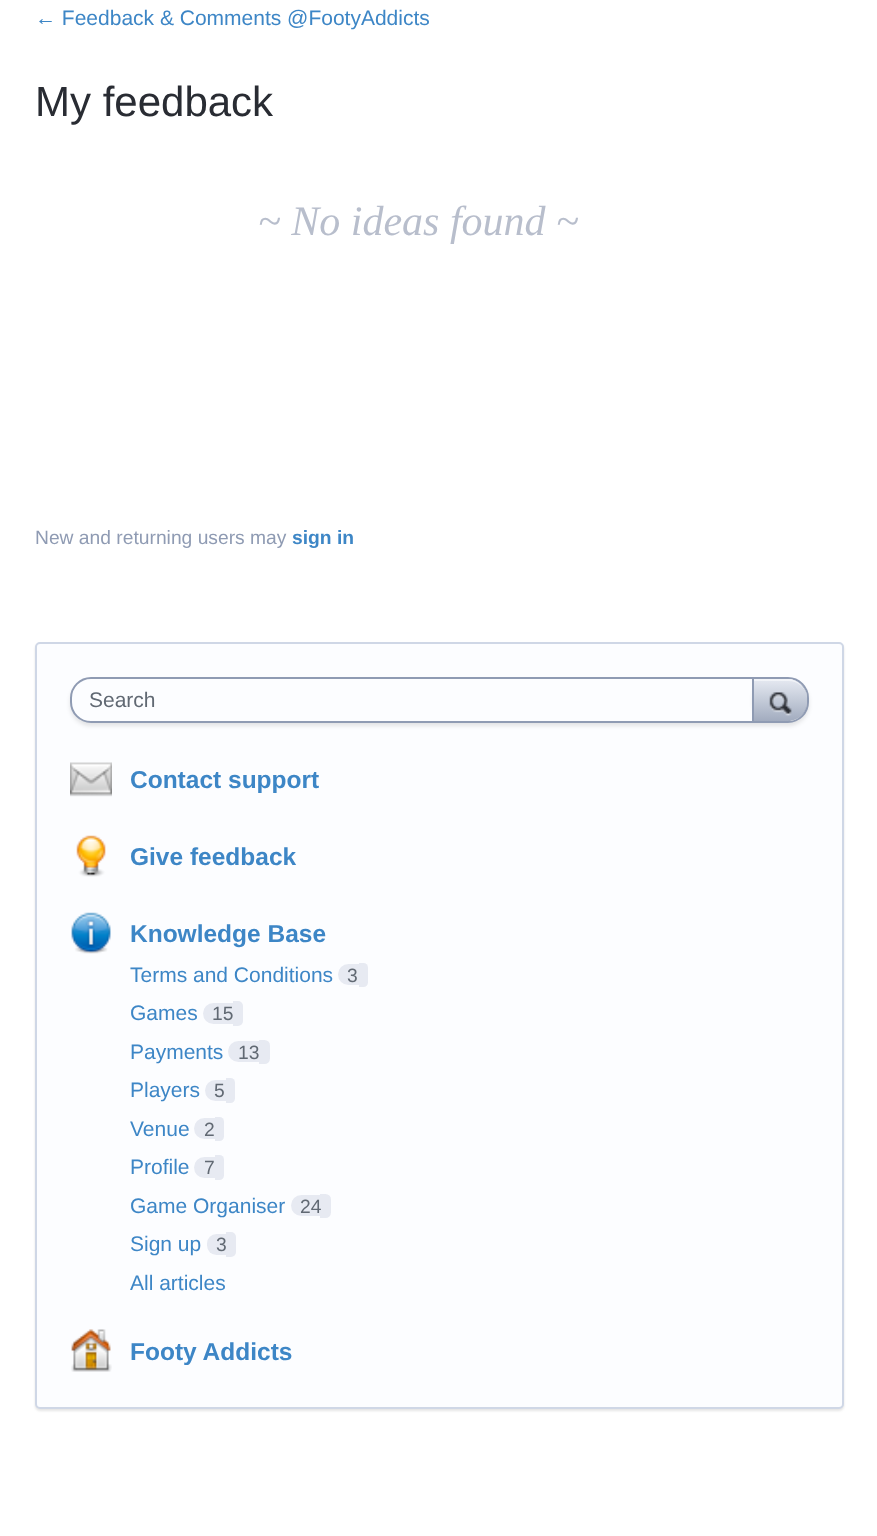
(async () => {
    const canvas = document.querySelector("canvas");
    canvas.width = 877;
    canvas.height = 1536;
    const context = canvas.getContext("2d");
    context.miterLimit = 4;
    context.fontKerning = "normal";
    function write(s, x, y, font, color) {
        context.font = font;
        context.fillStyle = color;
        context.fillText(s, x, y);
    }
    function block(x, y, w, h, color) {
        context.fillStyle = color;
        context.fillRect(x, y, w, h);
    }
    async function photo(src, x, y, w, h) {
        const img = new Image();
        img.src = src;
        await img.decode();
        context.drawImage(img, x, y, w, h);
    }
    let gradient;

    block(0, 0, 877, 1536, "rgb(255, 255, 255)");
    write("← Feedback & Comments @FootyAddicts", 35, 25, "21px Liberation Sans", "rgb(61, 134, 198)");
    write("My feedback", 35, 116, "42px Liberation Sans", "rgb(41, 44, 51)");
    write("~ No ideas found ~", 258, 235, "italic 42px Liberation Serif", "rgb(184, 190, 204)");
    write("New and returning users may", 35, 544, "19.25px Liberation Sans", "rgb(143, 155, 179)");
    write("sign in", 292, 544, "bold 19.25px Liberation Sans", "rgb(61, 134, 198)");
    context.fillStyle = "rgba(0, 0, 0, 0.1)";
    context.filter = "blur(1px)";
    context.beginPath();
    context.roundRect(35, 644, 809, 767, 5);
    context.fill();
    context.filter = "none";
    context.fillStyle = "rgb(252, 253, 255)";
    context.beginPath();
    context.roundRect(36, 643, 807, 765, 4);
    context.fill();
    context.strokeStyle = "rgb(207, 215, 230)";
    context.lineWidth = 2;
    context.stroke();
    context.fillStyle = "rgba(0, 0, 0, 0.1)";
    context.filter = "blur(2px)";
    context.beginPath();
    context.roundRect(70, 681, 739, 45, 21);
    context.fill();
    context.filter = "none";
    context.fillStyle = "rgb(252, 253, 255)";
    context.beginPath();
    context.roundRect(71, 678, 737, 44, 20);
    context.fill();
    context.strokeStyle = "rgb(143, 155, 179)";
    context.stroke();
    write("Search", 89, 707, "21px Liberation Sans", "rgb(97, 105, 115)");
    context.save();
    context.beginPath();
    context.roundRect(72, 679, 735, 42, 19);
    context.clip();
    context.fillStyle = "rgba(0, 0, 0, 0.1)";
    context.filter = "blur(2px)";
    context.beginPath();
    context.roundRect(753, 679, 56, 44, 21);
    context.fill();
    context.filter = "none";
    context.restore();
    gradient = context.createLinearGradient(754, 679, 754, 721);
    gradient.addColorStop(0, "rgb(230, 234, 242)");
    gradient.addColorStop(1, "rgb(162, 172, 191)");
    context.fillStyle = gradient;
    context.beginPath();
    context.moveTo(754, 679);
    context.lineTo(788, 679);
    context.bezierCurveTo(798, 679, 807, 688, 807, 698);
    context.lineTo(807, 700);
    context.bezierCurveTo(807, 712, 798, 721, 788, 721);
    context.lineTo(754, 721);
    context.closePath();
    context.fill();
    context.fillStyle = "rgba(255, 255, 255, 0.5)";
    context.beginPath();
    context.moveTo(754, 679);
    context.lineTo(788, 679);
    context.bezierCurveTo(797, 679, 806, 687, 807, 696);
    context.bezierCurveTo(805, 687, 797, 681, 788, 681);
    context.lineTo(754, 681);
    context.closePath();
    context.fill();
    context.fillStyle = "rgb(163, 177, 204)";
    context.beginPath();
    context.moveTo(788, 679);
    context.bezierCurveTo(793, 679, 798, 681, 801.5, 684.5);
    context.lineTo(801, 684.5);
    context.bezierCurveTo(797.5, 681, 793, 679, 788, 679);
    context.closePath();
    context.fill();
    context.fillStyle = "rgb(143, 155, 179)";
    context.beginPath();
    context.moveTo(807, 700);
    context.lineTo(807, 702);
    context.bezierCurveTo(807, 712.5, 798.5, 721, 788, 721);
    context.bezierCurveTo(798, 721, 807, 712, 807, 700);
    context.closePath();
    context.moveTo(801, 684.5);
    context.bezierCurveTo(804.5, 688, 807, 693, 807, 698);
    context.bezierCurveTo(807, 692.5, 805, 688, 801.5, 684.5);
    context.closePath();
    context.fill("evenodd");
    block(752, 679, 2, 42, "rgb(143, 155, 179)");
    await photo("media/1.png", 769, 692, 23, 24);
    await photo("media/2.png", 70, 762, 42, 35);
    write("Contact support", 130, 788, "bold 24.5px Liberation Sans", "rgb(61, 134, 198)");
    await photo("media/3.png", 76, 835, 30, 42);
    write("Give feedback", 130, 865, "bold 24.5px Liberation Sans", "rgb(61, 134, 198)");
    await photo("media/4.png", 71, 912, 40, 42);
    write("Knowledge Base", 130, 942, "bold 24.5px Liberation Sans", "rgb(61, 134, 198)");
    write("Terms and Conditions", 130, 982, "21px Liberation Sans", "rgb(61, 134, 198)");
    context.fillStyle = "rgb(231, 234, 242)";
    context.beginPath();
    context.roundRect(338, 964, 21, 21, [10.5, 0, 0, 10.5]);
    context.fill();
    write("3", 347, 982, "19.25px Liberation Sans", "rgb(97, 105, 115)");
    context.fillStyle = "rgb(231, 234, 242)";
    context.beginPath();
    context.roundRect(359, 963, 9, 24, [0, 4.5, 4.5, 0]);
    context.fill();
    write("Games", 130, 1020, "21px Liberation Sans", "rgb(61, 134, 198)");
    context.fillStyle = "rgb(231, 234, 242)";
    context.beginPath();
    context.roundRect(203, 1003, 30, 21, [10.5, 0, 0, 10.5]);
    context.fill();
    write("15", 212, 1020, "19.25px Liberation Sans", "rgb(97, 105, 115)");
    context.fillStyle = "rgb(231, 234, 242)";
    context.beginPath();
    context.roundRect(233, 1001, 10, 25, [0, 5, 5, 0]);
    context.fill();
    write("Payments", 130, 1059, "21px Liberation Sans", "rgb(61, 134, 198)");
    context.fillStyle = "rgb(231, 234, 242)";
    context.beginPath();
    context.roundRect(228, 1041, 31, 21, [10.5, 0, 0, 10.5]);
    context.fill();
    write("13", 238, 1059, "19.25px Liberation Sans", "rgb(97, 105, 115)");
    context.fillStyle = "rgb(231, 234, 242)";
    context.beginPath();
    context.roundRect(259, 1040, 11, 24, [0, 5.5, 5.5, 0]);
    context.fill();
    write("Players", 130, 1097, "21px Liberation Sans", "rgb(61, 134, 198)");
    context.fillStyle = "rgb(231, 234, 242)";
    context.beginPath();
    context.roundRect(205, 1080, 21, 21, [10.5, 0, 0, 10.5]);
    context.fill();
    write("5", 214, 1097, "19.25px Liberation Sans", "rgb(97, 105, 115)");
    context.fillStyle = "rgb(231, 234, 242)";
    context.beginPath();
    context.roundRect(226, 1078, 9, 25, [0, 4.5, 4.5, 0]);
    context.fill();
    write("Venue", 130, 1136, "21px Liberation Sans", "rgb(61, 134, 198)");
    context.fillStyle = "rgb(231, 234, 242)";
    context.beginPath();
    context.roundRect(194, 1118, 21, 21, [10.5, 0, 0, 10.5]);
    context.fill();
    write("2", 204, 1136, "19.25px Liberation Sans", "rgb(97, 105, 115)");
    context.fillStyle = "rgb(231, 234, 242)";
    context.beginPath();
    context.roundRect(215, 1117, 9, 24, [0, 4.5, 4.5, 0]);
    context.fill();
    write("Profile", 130, 1174, "21px Liberation Sans", "rgb(61, 134, 198)");
    context.fillStyle = "rgb(231, 234, 242)";
    context.beginPath();
    context.roundRect(194, 1157, 21, 21, [10.5, 0, 0, 10.5]);
    context.fill();
    write("7", 204, 1174, "19.25px Liberation Sans", "rgb(97, 105, 115)");
    context.fillStyle = "rgb(231, 234, 242)";
    context.beginPath();
    context.roundRect(215, 1155, 9, 25, [0, 4.5, 4.5, 0]);
    context.fill();
    write("Game Organiser", 130, 1213, "21px Liberation Sans", "rgb(61, 134, 198)");
    context.fillStyle = "rgb(231, 234, 242)";
    context.beginPath();
    context.roundRect(291, 1195, 29, 21, [10.5, 0, 0, 10.5]);
    context.fill();
    context.beginPath();
    context.roundRect(320, 1194, 11, 24, [0, 5.5, 5.5, 0]);
    context.fill();
    write("24", 300, 1213, "19.25px Liberation Sans", "rgb(97, 105, 115)");
    write("Sign up", 130, 1251, "21px Liberation Sans", "rgb(61, 134, 198)");
    context.fillStyle = "rgb(231, 234, 242)";
    context.beginPath();
    context.roundRect(207, 1234, 19, 21, [9.5, 0, 0, 9.5]);
    context.fill();
    write("3", 216, 1251, "19.25px Liberation Sans", "rgb(97, 105, 115)");
    context.fillStyle = "rgb(231, 234, 242)";
    context.beginPath();
    context.roundRect(226, 1232, 10, 25, [0, 5, 5, 0]);
    context.fill();
    write("All articles", 130, 1290, "21px Liberation Sans", "rgb(61, 134, 198)");
    await photo("media/5.png", 71, 1329, 41, 43);
    write("Footy Addicts", 130, 1360, "bold 24.5px Liberation Sans", "rgb(61, 134, 198)");
})();
